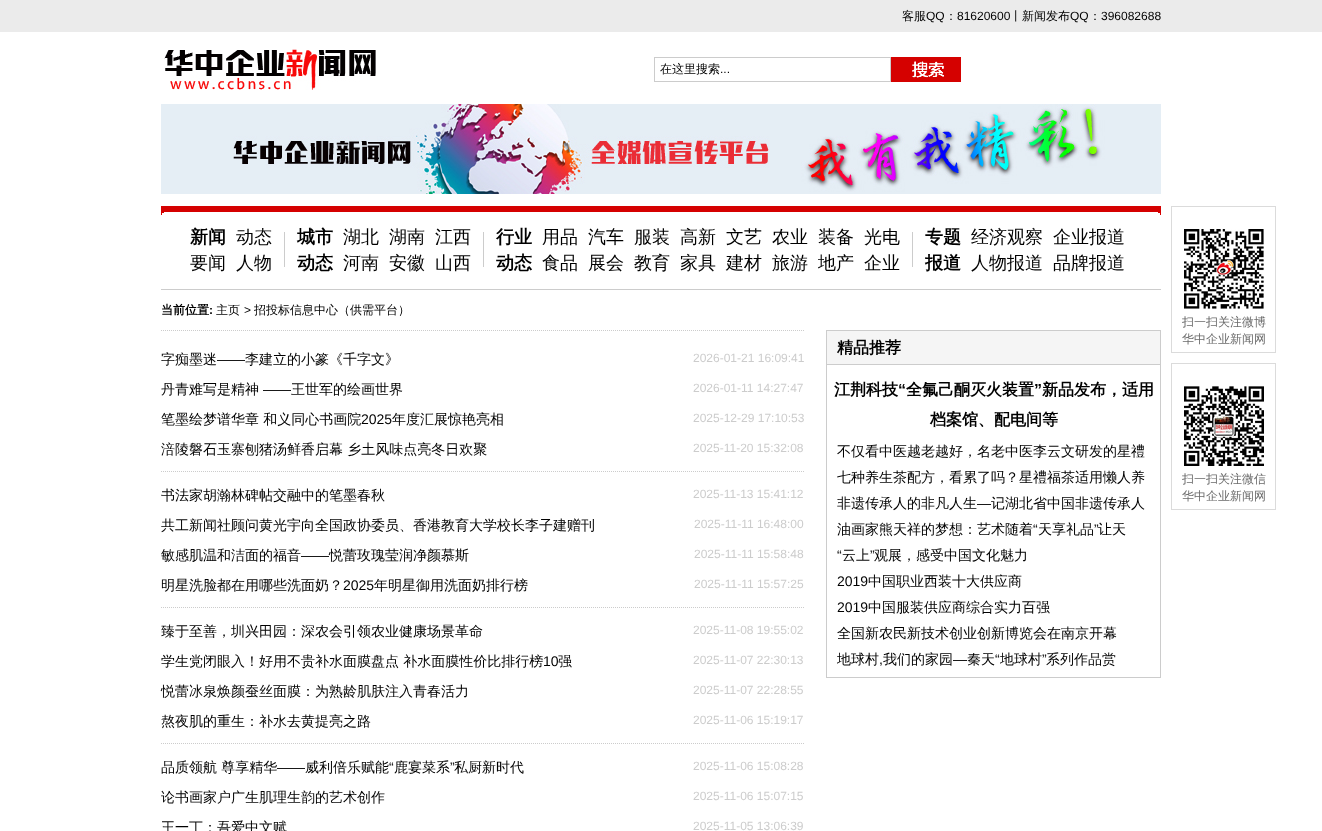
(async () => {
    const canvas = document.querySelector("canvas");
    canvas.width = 1322;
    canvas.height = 831;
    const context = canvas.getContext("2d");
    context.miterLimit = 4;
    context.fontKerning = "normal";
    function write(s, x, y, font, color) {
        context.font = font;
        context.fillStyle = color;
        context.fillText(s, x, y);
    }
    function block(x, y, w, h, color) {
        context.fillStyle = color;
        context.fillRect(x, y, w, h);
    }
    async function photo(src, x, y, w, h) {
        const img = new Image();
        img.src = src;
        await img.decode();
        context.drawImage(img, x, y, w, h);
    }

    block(0, 0, 1322, 831, "rgb(255, 255, 255)");
    block(0, 0, 1322, 32, "rgb(235, 235, 235)");
    write("客服", 902, 20, "500 12px WenQuanYi Zen Hei", "rgb(0, 0, 0)");
    write("QQ", 926, 20, "12px Liberation Sans", "rgb(0, 0, 0)");
    write("：", 945, 20, "500 12px WenQuanYi Zen Hei", "rgb(0, 0, 0)");
    write("81620600", 957, 20, "12px Liberation Sans", "rgb(0, 0, 0)");
    write("丨新闻发布", 1010, 20, "500 12px WenQuanYi Zen Hei", "rgb(0, 0, 0)");
    write("QQ", 1070, 20, "12px Liberation Sans", "rgb(0, 0, 0)");
    write("：", 1089, 20, "500 12px WenQuanYi Zen Hei", "rgb(0, 0, 0)");
    write("396082688", 1101, 20, "12px Liberation Sans", "rgb(0, 0, 0)");
    await photo("media/1.png", 164, 49, 212, 41);
    context.strokeStyle = "rgb(204, 204, 204)";
    context.strokeRect(654.5, 57.5, 236, 24);
    write("在这里搜索", 660, 73, "500 12px WenQuanYi Zen Hei", "rgb(0, 0, 0)");
    write("...", 720, 73, "12px Liberation Sans", "rgb(0, 0, 0)");
    await photo("media/2.png", 891, 57, 70, 25);
    await photo("media/3.png", 161, 104, 1000, 90);
    await photo("media/4.png", 161, 206, 1000, 9);
    block(161, 289, 1000, 1, "rgb(204, 204, 204)");
    write("新闻", 190, 243, "bold 18px WenQuanYi Zen Hei", "rgb(0, 0, 0)");
    write("要闻", 190, 269, "500 18px WenQuanYi Zen Hei", "rgb(0, 0, 0)");
    write("动态", 236, 243, "500 18px WenQuanYi Zen Hei", "rgb(0, 0, 0)");
    write("人物", 236, 269, "500 18px WenQuanYi Zen Hei", "rgb(0, 0, 0)");
    block(284, 232, 1, 35, "rgb(204, 204, 204)");
    write("城市", 297, 243, "bold 18px WenQuanYi Zen Hei", "rgb(0, 0, 0)");
    write("动态", 297, 269, "bold 18px WenQuanYi Zen Hei", "rgb(0, 0, 0)");
    write("湖北", 343, 243, "500 18px WenQuanYi Zen Hei", "rgb(0, 0, 0)");
    write("湖南", 389, 243, "500 18px WenQuanYi Zen Hei", "rgb(0, 0, 0)");
    write("江西", 435, 243, "500 18px WenQuanYi Zen Hei", "rgb(0, 0, 0)");
    write("河南", 343, 269, "500 18px WenQuanYi Zen Hei", "rgb(0, 0, 0)");
    write("安徽", 389, 269, "500 18px WenQuanYi Zen Hei", "rgb(0, 0, 0)");
    write("山西", 435, 269, "500 18px WenQuanYi Zen Hei", "rgb(0, 0, 0)");
    block(483, 232, 1, 35, "rgb(204, 204, 204)");
    write("行业", 496, 243, "bold 18px WenQuanYi Zen Hei", "rgb(0, 0, 0)");
    write("动态", 496, 269, "bold 18px WenQuanYi Zen Hei", "rgb(0, 0, 0)");
    write("用品", 542, 243, "500 18px WenQuanYi Zen Hei", "rgb(0, 0, 0)");
    write("汽车", 588, 243, "500 18px WenQuanYi Zen Hei", "rgb(0, 0, 0)");
    write("服装", 634, 243, "500 18px WenQuanYi Zen Hei", "rgb(0, 0, 0)");
    write("高新", 680, 243, "500 18px WenQuanYi Zen Hei", "rgb(0, 0, 0)");
    write("文艺", 726, 243, "500 18px WenQuanYi Zen Hei", "rgb(0, 0, 0)");
    write("农业", 772, 243, "500 18px WenQuanYi Zen Hei", "rgb(0, 0, 0)");
    write("装备", 818, 243, "500 18px WenQuanYi Zen Hei", "rgb(0, 0, 0)");
    write("光电", 864, 243, "500 18px WenQuanYi Zen Hei", "rgb(0, 0, 0)");
    write("食品", 542, 269, "500 18px WenQuanYi Zen Hei", "rgb(0, 0, 0)");
    write("展会", 588, 269, "500 18px WenQuanYi Zen Hei", "rgb(0, 0, 0)");
    write("教育", 634, 269, "500 18px WenQuanYi Zen Hei", "rgb(0, 0, 0)");
    write("家具", 680, 269, "500 18px WenQuanYi Zen Hei", "rgb(0, 0, 0)");
    write("建材", 726, 269, "500 18px WenQuanYi Zen Hei", "rgb(0, 0, 0)");
    write("旅游", 772, 269, "500 18px WenQuanYi Zen Hei", "rgb(0, 0, 0)");
    write("地产", 818, 269, "500 18px WenQuanYi Zen Hei", "rgb(0, 0, 0)");
    write("企业", 864, 269, "500 18px WenQuanYi Zen Hei", "rgb(0, 0, 0)");
    block(912, 232, 1, 35, "rgb(204, 204, 204)");
    write("专题", 925, 243, "bold 18px WenQuanYi Zen Hei", "rgb(0, 0, 0)");
    write("报道", 925, 269, "bold 18px WenQuanYi Zen Hei", "rgb(0, 0, 0)");
    write("经济观察", 971, 243, "500 18px WenQuanYi Zen Hei", "rgb(0, 0, 0)");
    write("企业报道", 1053, 243, "500 18px WenQuanYi Zen Hei", "rgb(0, 0, 0)");
    write("人物报道", 971, 269, "500 18px WenQuanYi Zen Hei", "rgb(0, 0, 0)");
    write("品牌报道", 1053, 269, "500 18px WenQuanYi Zen Hei", "rgb(0, 0, 0)");
    context.strokeStyle = "rgb(219, 219, 219)";
    context.strokeRect(1171.5, 206.5, 104, 146);
    await photo("media/5.png", 1184, 229, 80, 80);
    write("扫一扫关注微博", 1182, 326, "500 12px WenQuanYi Zen Hei", "rgb(107, 107, 107)");
    write("华中企业新闻网", 1182, 343, "500 12px WenQuanYi Zen Hei", "rgb(107, 107, 107)");
    context.strokeRect(1171.5, 363.5, 104, 146);
    await photo("media/6.png", 1184, 386, 80, 80);
    write("扫一扫关注微信", 1182, 483, "500 12px WenQuanYi Zen Hei", "rgb(107, 107, 107)");
    write("华中企业新闻网", 1182, 500, "500 12px WenQuanYi Zen Hei", "rgb(107, 107, 107)");
    write("当前位置", 161, 314, "bold 12px WenQuanYi Zen Hei", "rgb(0, 0, 0)");
    write(":", 209, 314, "bold 12px Liberation Sans", "rgb(0, 0, 0)");
    write("主页", 216, 314, "500 12px WenQuanYi Zen Hei", "rgb(0, 0, 0)");
    write(">", 244, 314, "12px Liberation Sans", "rgb(0, 0, 0)");
    write("招投标信息中心（供需平台）", 254, 314, "500 12px WenQuanYi Zen Hei", "rgb(0, 0, 0)");
    context.beginPath();
    context.moveTo(161, 330.5);
    context.lineTo(804, 330.5);
    context.strokeStyle = "rgb(204, 204, 204)";
    context.setLineDash([1, 1]);
    context.stroke();
    write("字痴墨迷", 161, 364, "500 14px WenQuanYi Zen Hei", "rgb(0, 0, 0)");
    write("——", 217, 364, "14px Liberation Sans", "rgb(0, 0, 0)");
    write("李建立的小篆《千字文》", 245, 364, "500 14px WenQuanYi Zen Hei", "rgb(0, 0, 0)");
    write("2026-01-21 16:09:41", 693, 362, "12px Liberation Sans", "rgb(204, 204, 204)");
    write("丹青难写是精神", 161, 394, "500 14px WenQuanYi Zen Hei", "rgb(0, 0, 0)");
    write("——", 263, 394, "14px Liberation Sans", "rgb(0, 0, 0)");
    write("王世军的绘画世界", 291, 394, "500 14px WenQuanYi Zen Hei", "rgb(0, 0, 0)");
    write("2026-01-11 14:27:47", 693, 392, "12px Liberation Sans", "rgb(204, 204, 204)");
    write("笔墨绘梦谱华章 和义同心书画院", 161, 424, "500 14px WenQuanYi Zen Hei", "rgb(0, 0, 0)");
    write("2025", 361, 424, "14px Liberation Sans", "rgb(0, 0, 0)");
    write("年度汇展惊艳亮相", 392, 424, "500 14px WenQuanYi Zen Hei", "rgb(0, 0, 0)");
    write("2025-12-29 17:10:53", 693, 422, "12px Liberation Sans", "rgb(204, 204, 204)");
    write("涪陵磐石玉寨刨猪汤鲜香启幕 乡土风味点亮冬日欢聚", 161, 454, "500 14px WenQuanYi Zen Hei", "rgb(0, 0, 0)");
    write("2025-11-20 15:32:08", 693, 452, "12px Liberation Sans", "rgb(204, 204, 204)");
    context.beginPath();
    context.moveTo(161, 471.5);
    context.lineTo(804, 471.5);
    context.stroke();
    write("书法家胡瀚林碑帖交融中的笔墨春秋", 161, 500, "500 14px WenQuanYi Zen Hei", "rgb(0, 0, 0)");
    write("2025-11-13 15:41:12", 693, 498, "12px Liberation Sans", "rgb(204, 204, 204)");
    write("共工新闻社顾问黄光宇向全国政协委员、香港教育大学校长李子建赠刊", 161, 530, "500 14px WenQuanYi Zen Hei", "rgb(0, 0, 0)");
    write("2025-11-11 16:48:00", 694, 528, "12px Liberation Sans", "rgb(204, 204, 204)");
    write("敏感肌温和洁面的福音", 161, 560, "500 14px WenQuanYi Zen Hei", "rgb(0, 0, 0)");
    write("——", 301, 560, "14px Liberation Sans", "rgb(0, 0, 0)");
    write("悦蕾玫瑰莹润净颜慕斯", 329, 560, "500 14px WenQuanYi Zen Hei", "rgb(0, 0, 0)");
    write("2025-11-11 15:58:48", 694, 558, "12px Liberation Sans", "rgb(204, 204, 204)");
    write("明星洗脸都在用哪些洗面奶？", 161, 590, "500 14px WenQuanYi Zen Hei", "rgb(0, 0, 0)");
    write("2025", 343, 590, "14px Liberation Sans", "rgb(0, 0, 0)");
    write("年明星御用洗面奶排行榜", 374, 590, "500 14px WenQuanYi Zen Hei", "rgb(0, 0, 0)");
    write("2025-11-11 15:57:25", 694, 588, "12px Liberation Sans", "rgb(204, 204, 204)");
    context.beginPath();
    context.moveTo(161, 607.5);
    context.lineTo(804, 607.5);
    context.stroke();
    write("臻于至善，圳兴田园：深农会引领农业健康场景革命", 161, 636, "500 14px WenQuanYi Zen Hei", "rgb(0, 0, 0)");
    write("2025-11-08 19:55:02", 693, 634, "12px Liberation Sans", "rgb(204, 204, 204)");
    write("学生党闭眼入！好用不贵补水面膜盘点 补水面膜性价比排行榜", 161, 666, "500 14px WenQuanYi Zen Hei", "rgb(0, 0, 0)");
    write("10", 543, 666, "14px Liberation Sans", "rgb(0, 0, 0)");
    write("强", 558, 666, "500 14px WenQuanYi Zen Hei", "rgb(0, 0, 0)");
    write("2025-11-07 22:30:13", 693, 664, "12px Liberation Sans", "rgb(204, 204, 204)");
    write("悦蕾冰泉焕颜蚕丝面膜：为熟龄肌肤注入青春活力", 161, 696, "500 14px WenQuanYi Zen Hei", "rgb(0, 0, 0)");
    write("2025-11-07 22:28:55", 693, 694, "12px Liberation Sans", "rgb(204, 204, 204)");
    write("熬夜肌的重生：补水去黄提亮之路", 161, 726, "500 14px WenQuanYi Zen Hei", "rgb(0, 0, 0)");
    write("2025-11-06 15:19:17", 693, 724, "12px Liberation Sans", "rgb(204, 204, 204)");
    context.beginPath();
    context.moveTo(161, 743.5);
    context.lineTo(804, 743.5);
    context.stroke();
    write("品质领航 尊享精华", 161, 772, "500 14px WenQuanYi Zen Hei", "rgb(0, 0, 0)");
    write("威利倍乐赋能", 305, 772, "500 14px WenQuanYi Zen Hei", "rgb(0, 0, 0)");
    write("“", 389, 772, "14px Liberation Sans", "rgb(0, 0, 0)");
    write("鹿宴菜系", 394, 772, "500 14px WenQuanYi Zen Hei", "rgb(0, 0, 0)");
    write("”", 450, 772, "14px Liberation Sans", "rgb(0, 0, 0)");
    write("私厨新时代", 454, 772, "500 14px WenQuanYi Zen Hei", "rgb(0, 0, 0)");
    write("——", 277, 772, "14px Liberation Sans", "rgb(0, 0, 0)");
    write("2025-11-06 15:08:28", 693, 770, "12px Liberation Sans", "rgb(204, 204, 204)");
    write("论书画家户广生肌理生韵的艺术创作", 161, 802, "500 14px WenQuanYi Zen Hei", "rgb(0, 0, 0)");
    write("2025-11-06 15:07:15", 693, 800, "12px Liberation Sans", "rgb(204, 204, 204)");
    write("王一丁：吾爱中文赋", 161, 832, "500 14px WenQuanYi Zen Hei", "rgb(0, 0, 0)");
    write("2025-11-05 13:06:39", 693, 830, "12px Liberation Sans", "rgb(204, 204, 204)");
    context.setLineDash([]);
    context.strokeRect(826.5, 330.5, 334, 347);
    block(827, 331, 333, 33, "rgb(245, 245, 245)");
    block(827, 364, 333, 1, "rgb(204, 204, 204)");
    write("精品推荐", 837, 353, "bold 16px WenQuanYi Zen Hei", "rgb(0, 0, 0)");
    write("江荆科技", 834, 395, "bold 16px WenQuanYi Zen Hei", "rgb(0, 0, 0)");
    write("“", 898, 395, "bold 16px Liberation Sans", "rgb(0, 0, 0)");
    write("全氟己酮灭火装置", 906, 395, "bold 16px WenQuanYi Zen Hei", "rgb(0, 0, 0)");
    write("”", 1034, 395, "bold 16px Liberation Sans", "rgb(0, 0, 0)");
    write("新品发布，适用", 1042, 395, "bold 16px WenQuanYi Zen Hei", "rgb(0, 0, 0)");
    write("档案馆、配电间等", 930, 425, "bold 16px WenQuanYi Zen Hei", "rgb(0, 0, 0)");
    write("不仅看中医越老越好，名老中医李云文研发的星禮", 837, 456, "500 14px WenQuanYi Zen Hei", "rgb(0, 0, 0)");
    write("七种养生茶配方，看累了吗？星禮福茶适用懒人养", 837, 482, "500 14px WenQuanYi Zen Hei", "rgb(0, 0, 0)");
    write("非遗传承人的非凡人生", 837, 508, "500 14px WenQuanYi Zen Hei", "rgb(0, 0, 0)");
    write("—", 977, 508, "14px Liberation Sans", "rgb(0, 0, 0)");
    write("记湖北省中国非遗传承人", 991, 508, "500 14px WenQuanYi Zen Hei", "rgb(0, 0, 0)");
    write("油画家熊天祥的梦想：艺术随着", 837, 534, "500 14px WenQuanYi Zen Hei", "rgb(0, 0, 0)");
    write("“", 1033, 534, "14px Liberation Sans", "rgb(0, 0, 0)");
    write("天享礼品", 1038, 534, "500 14px WenQuanYi Zen Hei", "rgb(0, 0, 0)");
    write("”", 1094, 534, "14px Liberation Sans", "rgb(0, 0, 0)");
    write("让天", 1098, 534, "500 14px WenQuanYi Zen Hei", "rgb(0, 0, 0)");
    write("“", 837, 560, "14px Liberation Sans", "rgb(0, 0, 0)");
    write("云上", 842, 560, "500 14px WenQuanYi Zen Hei", "rgb(0, 0, 0)");
    write("”", 870, 560, "14px Liberation Sans", "rgb(0, 0, 0)");
    write("观展，感受中国文化魅力", 874, 560, "500 14px WenQuanYi Zen Hei", "rgb(0, 0, 0)");
    write("2019", 837, 586, "14px Liberation Sans", "rgb(0, 0, 0)");
    write("中国职业西装十大供应商", 868, 586, "500 14px WenQuanYi Zen Hei", "rgb(0, 0, 0)");
    write("2019", 837, 612, "14px Liberation Sans", "rgb(0, 0, 0)");
    write("中国服装供应商综合实力百强", 868, 612, "500 14px WenQuanYi Zen Hei", "rgb(0, 0, 0)");
    write("全国新农民新技术创业创新博览会在南京开幕", 837, 638, "500 14px WenQuanYi Zen Hei", "rgb(0, 0, 0)");
    write("地球村", 837, 664, "500 14px WenQuanYi Zen Hei", "rgb(0, 0, 0)");
    write("我们的家园", 883, 664, "500 14px WenQuanYi Zen Hei", "rgb(0, 0, 0)");
    write("秦天", 967, 664, "500 14px WenQuanYi Zen Hei", "rgb(0, 0, 0)");
    write("“", 995, 664, "14px Liberation Sans", "rgb(0, 0, 0)");
    write("地球村", 1000, 664, "500 14px WenQuanYi Zen Hei", "rgb(0, 0, 0)");
    write("”", 1042, 664, "14px Liberation Sans", "rgb(0, 0, 0)");
    write("系列作品赏", 1046, 664, "500 14px WenQuanYi Zen Hei", "rgb(0, 0, 0)");
    write("—", 953, 664, "14px Liberation Sans", "rgb(0, 0, 0)");
    write(",", 879, 664, "14px Liberation Sans", "rgb(0, 0, 0)");
})();
